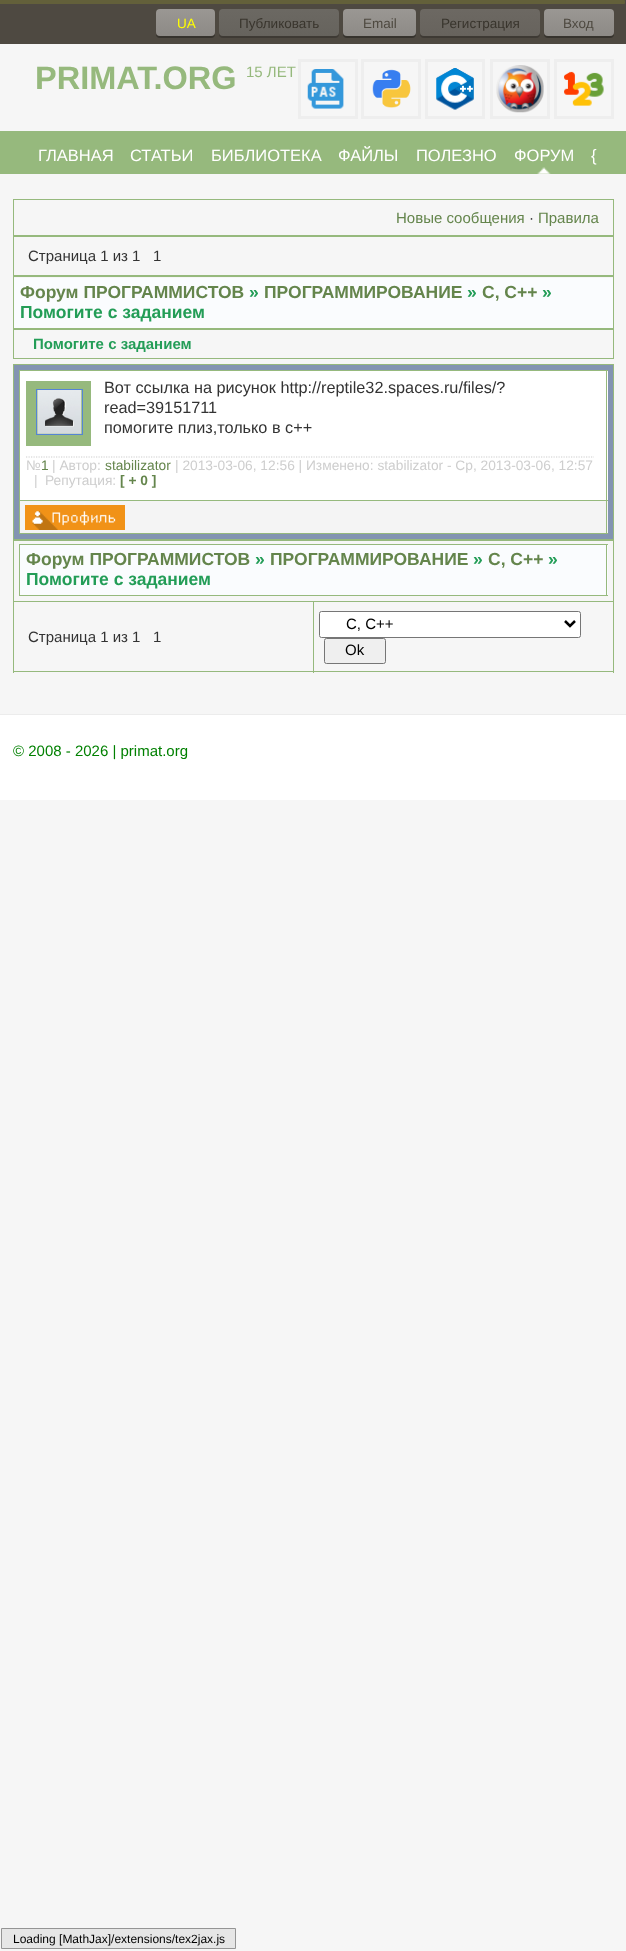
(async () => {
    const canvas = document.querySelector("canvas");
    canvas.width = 626;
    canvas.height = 1951;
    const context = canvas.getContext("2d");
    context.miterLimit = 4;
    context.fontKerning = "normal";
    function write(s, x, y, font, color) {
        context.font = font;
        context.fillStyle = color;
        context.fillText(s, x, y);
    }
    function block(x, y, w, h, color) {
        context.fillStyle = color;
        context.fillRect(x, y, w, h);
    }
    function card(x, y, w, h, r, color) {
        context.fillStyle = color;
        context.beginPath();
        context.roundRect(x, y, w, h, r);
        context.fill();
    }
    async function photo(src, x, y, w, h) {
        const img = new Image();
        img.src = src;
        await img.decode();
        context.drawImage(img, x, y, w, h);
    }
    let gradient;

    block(0, 0, 626, 1951, "rgb(246, 246, 246)");
    block(0, 0, 626, 44, "rgb(78, 73, 65)");
    card(-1, 0, 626, 4, 1, "rgb(99, 96, 58)");
    context.fillStyle = "rgba(0, 0, 0, 0.3)";
    context.filter = "blur(0.5px)";
    context.beginPath();
    context.roundRect(156, 10, 59, 28, 4);
    context.fill();
    context.filter = "none";
    card(156, 9, 59, 27, 4, "rgb(77, 71, 63)");
    gradient = context.createLinearGradient(186, 37, 186, -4.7);
    gradient.addColorStop(0, "rgba(204, 204, 204, 0.5)");
    gradient.addColorStop(1, "rgba(244, 244, 244, 0.5)");
    context.fillStyle = gradient;
    context.beginPath();
    context.roundRect(156, 9, 59, 27, 4);
    context.fill();
    write("UA", 177, 28, "13.5px Liberation Sans", "rgb(255, 255, 0)");
    context.fillStyle = "rgba(0, 0, 0, 0.2)";
    context.filter = "blur(0.5px)";
    context.beginPath();
    context.roundRect(219, 10, 120, 28, 4);
    context.fill();
    context.filter = "none";
    gradient = context.createLinearGradient(279, 37, 279, -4.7);
    gradient.addColorStop(0, "rgb(102, 99, 93)");
    gradient.addColorStop(1, "rgb(110, 107, 101)");
    context.fillStyle = gradient;
    context.beginPath();
    context.roundRect(219, 9, 120, 27, 4);
    context.fill();
    write("Публиковать", 239, 28, "13.5px Liberation Sans", "rgb(57, 53, 45)");
    context.fillStyle = "rgba(0, 0, 0, 0.3)";
    context.filter = "blur(0.5px)";
    context.beginPath();
    context.roundRect(343, 10, 73, 28, 4);
    context.fill();
    context.filter = "none";
    gradient = context.createLinearGradient(379, 37, 379, -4.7);
    gradient.addColorStop(0, "rgb(141, 138, 134)");
    gradient.addColorStop(1, "rgb(161, 158, 154)");
    context.fillStyle = gradient;
    context.beginPath();
    context.roundRect(343, 9, 73, 27, 4);
    context.fill();
    write("Email", 363, 28, "13.5px Liberation Sans", "rgb(78, 73, 64)");
    context.fillStyle = "rgba(0, 0, 0, 0.2)";
    context.filter = "blur(0.5px)";
    context.beginPath();
    context.roundRect(420, 10, 120, 28, 4);
    context.fill();
    context.filter = "none";
    gradient = context.createLinearGradient(480, 37, 480, -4.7);
    gradient.addColorStop(0, "rgb(103, 99, 93)");
    gradient.addColorStop(1, "rgb(111, 107, 101)");
    context.fillStyle = gradient;
    context.beginPath();
    context.roundRect(420, 9, 120, 27, 4);
    context.fill();
    write("Регистрация", 441, 28, "13.5px Liberation Sans", "rgb(57, 53, 45)");
    context.fillStyle = "rgba(0, 0, 0, 0.3)";
    context.filter = "blur(0.5px)";
    context.beginPath();
    context.roundRect(544, 10, 70, 28, 4);
    context.fill();
    context.filter = "none";
    card(544, 9, 70, 27, 4, "rgb(77, 71, 63)");
    gradient = context.createLinearGradient(579, 37, 579, -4.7);
    gradient.addColorStop(0, "rgba(204, 204, 204, 0.5)");
    gradient.addColorStop(1, "rgba(244, 244, 244, 0.5)");
    context.fillStyle = gradient;
    context.beginPath();
    context.roundRect(544, 9, 70, 27, 4);
    context.fill();
    write("Вход", 563, 28, "13.5px Liberation Sans", "rgb(78, 73, 64)");
    write("PRIMAT.ORG", 35, 89, "bold 32.5px Liberation Sans", "rgb(150, 185, 125)");
    write("15 ЛЕТ", 246, 77, "15px Liberation Sans", "rgb(150, 185, 125)");
    context.beginPath();
    context.rect(299.5, 60.5, 57, 57);
    context.strokeStyle = "rgb(238, 238, 238)";
    context.lineWidth = 3;
    context.stroke();
    context.beginPath();
    context.rect(362.5, 60.5, 57, 57);
    context.stroke();
    context.beginPath();
    context.rect(426.5, 60.5, 57, 57);
    context.stroke();
    context.beginPath();
    context.rect(491.5, 60.5, 57, 57);
    context.stroke();
    context.beginPath();
    context.rect(555.5, 60.5, 57, 57);
    context.stroke();
    await photo("media/1.png", 307, 69, 37, 40);
    await photo("media/2.png", 372, 69, 39, 39);
    await photo("media/3.png", 436, 68, 38, 42);
    await photo("media/4.png", 496, 65, 48, 48);
    await photo("media/5.png", 564, 71, 40, 35);
    block(0, 131, 626, 43, "rgb(150, 185, 125)");
    write("ГЛАВНАЯ", 38, 161, "16.5px Liberation Sans", "rgb(255, 255, 255)");
    write("СТАТЬИ", 130, 161, "16.5px Liberation Sans", "rgb(255, 255, 255)");
    write("БИБЛИОТЕКА", 211, 161, "16.5px Liberation Sans", "rgb(255, 255, 255)");
    write("ФАЙЛЫ", 338, 161, "16.5px Liberation Sans", "rgb(255, 255, 255)");
    write("ПОЛЕЗНО", 416, 161, "16.5px Liberation Sans", "rgb(255, 255, 255)");
    write("ФОРУМ", 514, 161, "16.5px Liberation Sans", "rgb(255, 255, 255)");
    write("{", 591, 161, "16.5px Liberation Sans", "rgb(255, 255, 255)");
    await photo("media/6.png", 537, 167, 14, 7);
    block(13, 199, 601, 1, "rgb(150, 185, 125)");
    block(613, 199, 1, 37, "rgb(150, 185, 125)");
    block(13, 235, 601, 2, "rgb(150, 185, 125)");
    block(13, 199, 1, 37, "rgb(150, 185, 125)");
    write("Новые сообщения", 396, 223, "15px Liberation Sans", "rgb(100, 133, 76)");
    write("·", 529, 223, "15px Liberation Sans", "rgb(51, 51, 51)");
    write("Правила", 538, 223, "15px Liberation Sans", "rgb(100, 133, 76)");
    block(613, 236, 1, 40, "rgb(150, 185, 125)");
    block(13, 275, 601, 2, "rgb(150, 185, 125)");
    block(13, 236, 1, 40, "rgb(150, 185, 125)");
    write("Страница 1 из 1", 28, 261, "15px Liberation Sans", "rgb(51, 51, 51)");
    write("1", 153, 261, "15px Liberation Sans", "rgb(51, 51, 51)");
    block(14, 278, 599, 50, "rgb(250, 252, 254)");
    block(613, 276, 1, 53, "rgb(150, 185, 125)");
    block(13, 328, 601, 2, "rgb(150, 185, 125)");
    block(13, 276, 1, 53, "rgb(150, 185, 125)");
    write("Форум ПРОГРАММИСТОВ", 20, 298, "bold 17.5px Liberation Sans", "rgb(100, 133, 76)");
    write("»", 249, 298, "bold 17.5px Liberation Sans", "rgb(35, 157, 87)");
    write("ПРОГРАММИРОВАНИЕ", 264, 298, "bold 17.5px Liberation Sans", "rgb(100, 133, 76)");
    write("»", 467, 298, "bold 17.5px Liberation Sans", "rgb(35, 157, 87)");
    write("С, C++", 482, 298, "bold 17.5px Liberation Sans", "rgb(100, 133, 76)");
    write("»", 542, 298, "bold 17.5px Liberation Sans", "rgb(35, 157, 87)");
    write("Помогите с заданием", 20, 318, "bold 17.5px Liberation Sans", "rgb(35, 157, 87)");
    block(613, 329, 1, 30, "rgb(150, 185, 125)");
    block(13, 358, 601, 1, "rgb(150, 185, 125)");
    block(13, 329, 1, 30, "rgb(150, 185, 125)");
    write("Помогите с заданием", 33, 349, "bold 15px Liberation Sans", "rgb(35, 157, 87)");
    block(14, 365, 599, 174, "rgb(131, 148, 178)");
    block(13, 364, 601, 1, "rgb(150, 185, 125)");
    block(613, 364, 1, 176, "rgb(150, 185, 125)");
    block(13, 539, 601, 2, "rgb(150, 185, 125)");
    block(13, 364, 1, 176, "rgb(150, 185, 125)");
    block(20, 371, 588, 129, "rgb(255, 255, 255)");
    block(19, 370, 589, 1, "rgb(150, 185, 125)");
    block(19, 500, 589, 1, "rgb(150, 185, 125)");
    block(20, 501, 588, 32, "rgb(244, 244, 244)");
    block(606, 500, 1, 34, "rgb(150, 185, 125)");
    block(606, 370, 1, 131, "rgb(150, 185, 125)");
    block(19, 533, 589, 1, "rgb(150, 185, 125)");
    block(19, 500, 1, 34, "rgb(150, 185, 125)");
    block(19, 370, 1, 131, "rgb(150, 185, 125)");
    block(26, 381, 65, 65, "rgb(150, 185, 125)");
    context.strokeStyle = "rgb(85, 132, 213)";
    context.lineWidth = 1;
    context.strokeRect(36.5, 389.5, 46, 45);
    await photo("media/7.png", 37, 390, 45, 44);
    write("Вот ссылка на рисунок http://reptile32.spaces.ru/files/?", 104, 393, "16.25px Liberation Sans", "rgb(51, 51, 51)");
    write("read=39151711", 104, 413, "16.25px Liberation Sans", "rgb(51, 51, 51)");
    write("помогите плиз,только в с++", 104, 433, "16.25px Liberation Sans", "rgb(51, 51, 51)");
    context.beginPath();
    context.moveTo(26, 457);
    context.lineTo(594, 457);
    context.strokeStyle = "rgb(206, 206, 206)";
    context.lineWidth = 1.2;
    context.setLineDash([1.25, 1.25]);
    context.stroke();
    write("№", 26, 470, "13.75px Liberation Sans", "rgb(206, 206, 206)");
    write("1", 41, 470, "13.75px Liberation Sans", "rgb(100, 133, 76)");
    write("| Автор:", 52, 470, "13.75px Liberation Sans", "rgb(206, 206, 206)");
    write("stabilizator", 105, 470, "13.75px Liberation Sans", "rgb(100, 133, 76)");
    write("| 2013-03-06, 12:56 | Изменено: stabilizator - Ср, 2013-03-06, 12:57", 175, 470, "13.75px Liberation Sans", "rgb(206, 206, 206)");
    write("|", 34, 485, "13.75px Liberation Sans", "rgb(206, 206, 206)");
    write("Репутация:", 45, 485, "13.75px Liberation Sans", "rgb(206, 206, 206)");
    write("[ + 0 ]", 120, 485, "bold 13.75px Liberation Sans", "rgb(100, 133, 76)");
    await photo("media/8.png", 25, 505, 100, 25);
    block(20, 545, 588, 50, "rgb(250, 252, 254)");
    block(19, 544, 589, 1, "rgb(150, 185, 125)");
    block(606, 544, 1, 52, "rgb(150, 185, 125)");
    block(19, 595, 589, 1, "rgb(150, 185, 125)");
    block(19, 544, 1, 52, "rgb(150, 185, 125)");
    write("Форум ПРОГРАММИСТОВ", 26, 565, "bold 17.5px Liberation Sans", "rgb(100, 133, 76)");
    write("»", 255, 565, "bold 17.5px Liberation Sans", "rgb(35, 157, 87)");
    write("ПРОГРАММИРОВАНИЕ", 270, 565, "bold 17.5px Liberation Sans", "rgb(100, 133, 76)");
    write("»", 473, 565, "bold 17.5px Liberation Sans", "rgb(35, 157, 87)");
    write("С, C++", 488, 565, "bold 17.5px Liberation Sans", "rgb(100, 133, 76)");
    write("»", 548, 565, "bold 17.5px Liberation Sans", "rgb(35, 157, 87)");
    write("Помогите с заданием", 26, 585, "bold 17.5px Liberation Sans", "rgb(35, 157, 87)");
    block(313, 601, 301, 1, "rgb(150, 185, 125)");
    block(613, 540, 1, 133, "rgb(150, 185, 125)");
    block(313, 671, 301, 1, "rgb(150, 185, 125)");
    block(313, 601, 1, 72, "rgb(150, 185, 125)");
    block(13, 601, 301, 1, "rgb(150, 185, 125)");
    block(13, 671, 301, 1, "rgb(150, 185, 125)");
    block(13, 540, 1, 133, "rgb(150, 185, 125)");
    write("Страница 1 из 1", 28, 642, "15px Liberation Sans", "rgb(51, 51, 51)");
    write("1", 153, 642, "15px Liberation Sans", "rgb(51, 51, 51)");
    context.fillStyle = "rgb(255, 255, 255)";
    context.beginPath();
    context.roundRect(319.5, 611.5, 261, 26, 2);
    context.fill();
    context.strokeStyle = "rgb(118, 118, 118)";
    context.lineWidth = 1;
    context.setLineDash([]);
    context.stroke();
    context.beginPath();
    context.moveTo(565, 621);
    context.lineTo(570, 626);
    context.lineTo(575, 621);
    context.strokeStyle = "rgb(0, 0, 0)";
    context.lineWidth = 2.5;
    context.stroke();
    write("С, C++", 346, 629, "15px Liberation Sans", "rgb(0, 0, 0)");
    context.fillStyle = "rgb(239, 239, 239)";
    context.beginPath();
    context.roundRect(324.5, 638.5, 61, 25, 2);
    context.fill();
    context.strokeStyle = "rgb(118, 118, 118)";
    context.lineWidth = 1;
    context.stroke();
    write("Ok", 345, 655, "15px Liberation Sans", "rgb(0, 0, 0)");
    context.fillStyle = "rgb(236, 236, 236)";
    context.filter = "blur(0.5px)";
    context.beginPath();
    context.rect(0, 714, 626, 85);
    context.fill();
    context.filter = "none";
    block(0, 715, 626, 85, "rgb(255, 255, 255)");
    context.save();
    context.beginPath();
    context.rect(13, 740, 601, 35);
    context.clip();
    write("© 2008 - 2026 | primat.org", 13, 756, "15px Liberation Sans", "rgb(0, 128, 0)");
    context.restore();
    context.fillStyle = "rgb(230, 230, 230)";
    context.beginPath();
    context.rect(1.5, 1928.5, 234, 20);
    context.fill();
    context.strokeStyle = "rgb(149, 149, 149)";
    context.stroke();
    write("Loading [MathJax]/extensions/tex2jax.js", 13, 1943, "12px Liberation Sans", "rgb(0, 0, 0)");
})();
